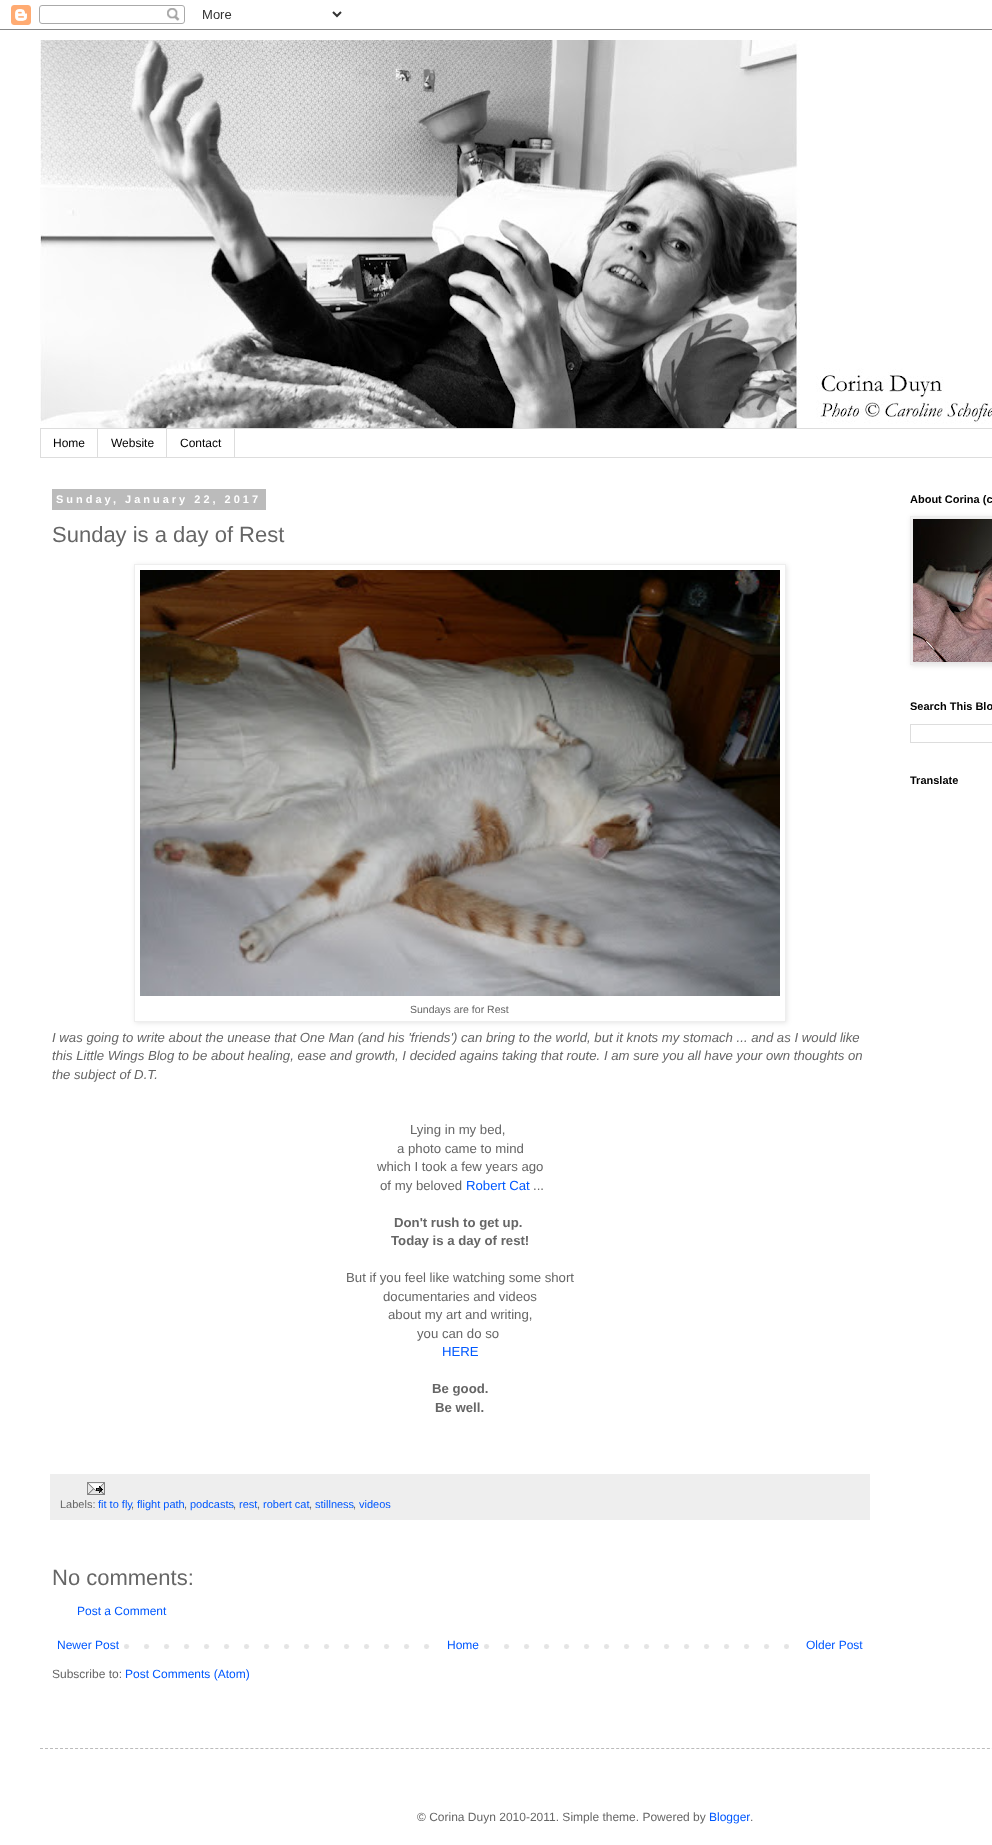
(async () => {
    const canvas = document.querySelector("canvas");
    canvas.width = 992;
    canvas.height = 1845;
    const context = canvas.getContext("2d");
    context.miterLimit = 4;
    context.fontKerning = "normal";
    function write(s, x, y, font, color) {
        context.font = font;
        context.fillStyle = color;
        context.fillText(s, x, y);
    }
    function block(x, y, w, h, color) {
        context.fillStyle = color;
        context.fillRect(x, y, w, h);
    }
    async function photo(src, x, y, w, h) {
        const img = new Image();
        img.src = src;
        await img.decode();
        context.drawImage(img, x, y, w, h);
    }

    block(0, 0, 992, 1845, "rgb(255, 255, 255)");
    await photo("media/1.png", 0, 5, 992, 25);
    await photo("media/2.png", 40, 40, 952, 388);
    context.strokeStyle = "rgb(221, 221, 221)";
    context.strokeRect(40.5, 428.5, 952, 29);
    block(97, 429, 1, 28, "rgb(221, 221, 221)");
    write("Home", 53, 447, "12px Liberation Sans", "rgb(0, 0, 0)");
    block(166, 429, 1, 28, "rgb(221, 221, 221)");
    write("Website", 111, 447, "12px Liberation Sans", "rgb(0, 0, 0)");
    block(234, 429, 1, 28, "rgb(221, 221, 221)");
    write("Contact", 180, 447, "12px Liberation Sans", "rgb(0, 0, 0)");
    block(52, 489, 214, 21, "rgb(187, 187, 187)");
    context.letterSpacing = "3px";
    write("Sunday, January 22, 2017", 56, 503, "bold 11px Liberation Sans", "rgb(255, 255, 255)");
    context.letterSpacing = "0px";
    write("Sunday is a day of Rest", 52, 542, "22px Liberation Sans", "rgb(102, 102, 102)");
    context.save();
    context.beginPath();
    context.moveTo(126, 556);
    context.lineTo(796, 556);
    context.lineTo(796, 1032);
    context.lineTo(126, 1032);
    context.closePath();
    context.moveTo(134, 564);
    context.lineTo(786, 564);
    context.lineTo(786, 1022);
    context.lineTo(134, 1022);
    context.closePath();
    context.clip("evenodd");
    context.fillStyle = "rgba(0, 0, 0, 0.1)";
    context.filter = "blur(2.5px)";
    context.beginPath();
    context.rect(135, 565, 652, 458);
    context.fill();
    context.filter = "none";
    context.restore();
    context.strokeStyle = "rgb(238, 238, 238)";
    context.strokeRect(134.5, 564.5, 651, 457);
    await photo("media/3.png", 140, 570, 640, 426);
    write("Sundays are for Rest", 410, 1013, "10.5px Liberation Sans", "rgb(102, 102, 102)");
    write("I was going to write about the unease that One Man (and his 'friends') can bring to the world, but it knots my stomach ... and as I would like", 52, 1042, "italic 13.2px Liberation Sans", "rgb(102, 102, 102)");
    write("this Little Wings Blog to be about healing, ease and growth, I decided agains taking that route. I am sure you all have your own thoughts on", 52, 1060, "italic 13.2px Liberation Sans", "rgb(102, 102, 102)");
    write("the subject of D.T.", 52, 1079, "italic 13.2px Liberation Sans", "rgb(102, 102, 102)");
    write("Lying in my bed,", 410, 1134, "13.2px Liberation Sans", "rgb(102, 102, 102)");
    write("a photo came to mind", 397, 1153, "13.2px Liberation Sans", "rgb(102, 102, 102)");
    write("which I took a few years ago", 377, 1171, "13.2px Liberation Sans", "rgb(102, 102, 102)");
    write("of my beloved", 380, 1190, "13.2px Liberation Sans", "rgb(102, 102, 102)");
    write("Robert Cat", 466, 1190, "13.2px Liberation Sans", "rgb(0, 88, 255)");
    write("...", 533, 1190, "13.2px Liberation Sans", "rgb(102, 102, 102)");
    write("Don't rush to get up.", 394, 1227, "bold 13.2px Liberation Sans", "rgb(102, 102, 102)");
    write("Today is a day of rest!", 391, 1245, "bold 13.2px Liberation Sans", "rgb(102, 102, 102)");
    write("But if you feel like watching some short", 346, 1282, "13.2px Liberation Sans", "rgb(102, 102, 102)");
    write("documentaries and videos", 383, 1301, "13.2px Liberation Sans", "rgb(102, 102, 102)");
    write("about my art and writing,", 388, 1319, "13.2px Liberation Sans", "rgb(102, 102, 102)");
    write("you can do so", 417, 1338, "13.2px Liberation Sans", "rgb(102, 102, 102)");
    write("HERE", 442, 1356, "13.2px Liberation Sans", "rgb(0, 88, 255)");
    write("Be good.", 432, 1393, "bold 13.2px Liberation Sans", "rgb(102, 102, 102)");
    write("Be well.", 435, 1412, "bold 13.2px Liberation Sans", "rgb(102, 102, 102)");
    block(50, 1474, 820, 46, "rgb(238, 238, 238)");
    await photo("media/4.png", 87, 1482, 18, 13);
    write("Labels:", 60, 1508, "11px Liberation Sans", "rgb(102, 102, 102)");
    write("fit to fly", 98, 1508, "11px Liberation Sans", "rgb(0, 88, 255)");
    write(",", 131, 1508, "11px Liberation Sans", "rgb(102, 102, 102)");
    write("flight path", 137, 1508, "11px Liberation Sans", "rgb(0, 88, 255)");
    write(",", 184, 1508, "11px Liberation Sans", "rgb(102, 102, 102)");
    write("podcasts", 190, 1508, "11px Liberation Sans", "rgb(0, 88, 255)");
    write(",", 233, 1508, "11px Liberation Sans", "rgb(102, 102, 102)");
    write("rest", 239, 1508, "11px Liberation Sans", "rgb(0, 88, 255)");
    write(",", 257, 1508, "11px Liberation Sans", "rgb(102, 102, 102)");
    write("robert cat", 263, 1508, "11px Liberation Sans", "rgb(0, 88, 255)");
    write(",", 309, 1508, "11px Liberation Sans", "rgb(102, 102, 102)");
    write("stillness", 315, 1508, "11px Liberation Sans", "rgb(0, 88, 255)");
    write(",", 353, 1508, "11px Liberation Sans", "rgb(102, 102, 102)");
    write("videos", 359, 1508, "11px Liberation Sans", "rgb(0, 88, 255)");
    write("No comments:", 52, 1585, "22px Liberation Sans", "rgb(102, 102, 102)");
    write("Post a Comment", 77, 1615, "12px Liberation Sans", "rgb(0, 88, 255)");
    await photo("media/5.png", 124, 1644, 665, 5);
    write("Newer Post", 57, 1649, "12px Liberation Sans", "rgb(0, 88, 255)");
    block(444, 1644, 26, 5, "rgb(255, 255, 255)");
    write("Home", 447, 1649, "12px Liberation Sans", "rgb(0, 88, 255)");
    write("Older Post", 806, 1649, "12px Liberation Sans", "rgb(0, 88, 255)");
    write("Subscribe to:", 52, 1678, "12px Liberation Sans", "rgb(102, 102, 102)");
    write("Post Comments (Atom)", 125, 1678, "12px Liberation Sans", "rgb(0, 88, 255)");
    write("About Corina (c", 910, 503, "bold 11px Liberation Sans", "rgb(0, 0, 0)");
    context.fillStyle = "rgba(0, 0, 0, 0.1)";
    context.filter = "blur(2.5px)";
    context.beginPath();
    context.rect(911, 517, 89, 149);
    context.fill();
    context.filter = "none";
    context.strokeRect(910.5, 516.5, 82, 148);
    await photo("media/6.png", 913, 519, 79, 143);
    write("Search This Blo", 910, 710, "bold 11px Liberation Sans", "rgb(0, 0, 0)");
    context.strokeStyle = "rgb(221, 221, 221)";
    context.strokeRect(910.5, 724.5, 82, 18);
    write("Translate", 910, 784, "bold 11px Liberation Sans", "rgb(0, 0, 0)");
    context.beginPath();
    context.moveTo(40, 1748.5);
    context.lineTo(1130, 1748.5);
    context.strokeStyle = "rgb(187, 187, 187)";
    context.setLineDash([3, 2.01]);
    context.stroke();
    write("© Corina Duyn 2010-2011. Simple theme. Powered by", 417, 1821, "12px Liberation Sans", "rgb(102, 102, 102)");
    write("Blogger", 709, 1821, "12px Liberation Sans", "rgb(0, 88, 255)");
    write(".", 750, 1821, "12px Liberation Sans", "rgb(102, 102, 102)");
})();
